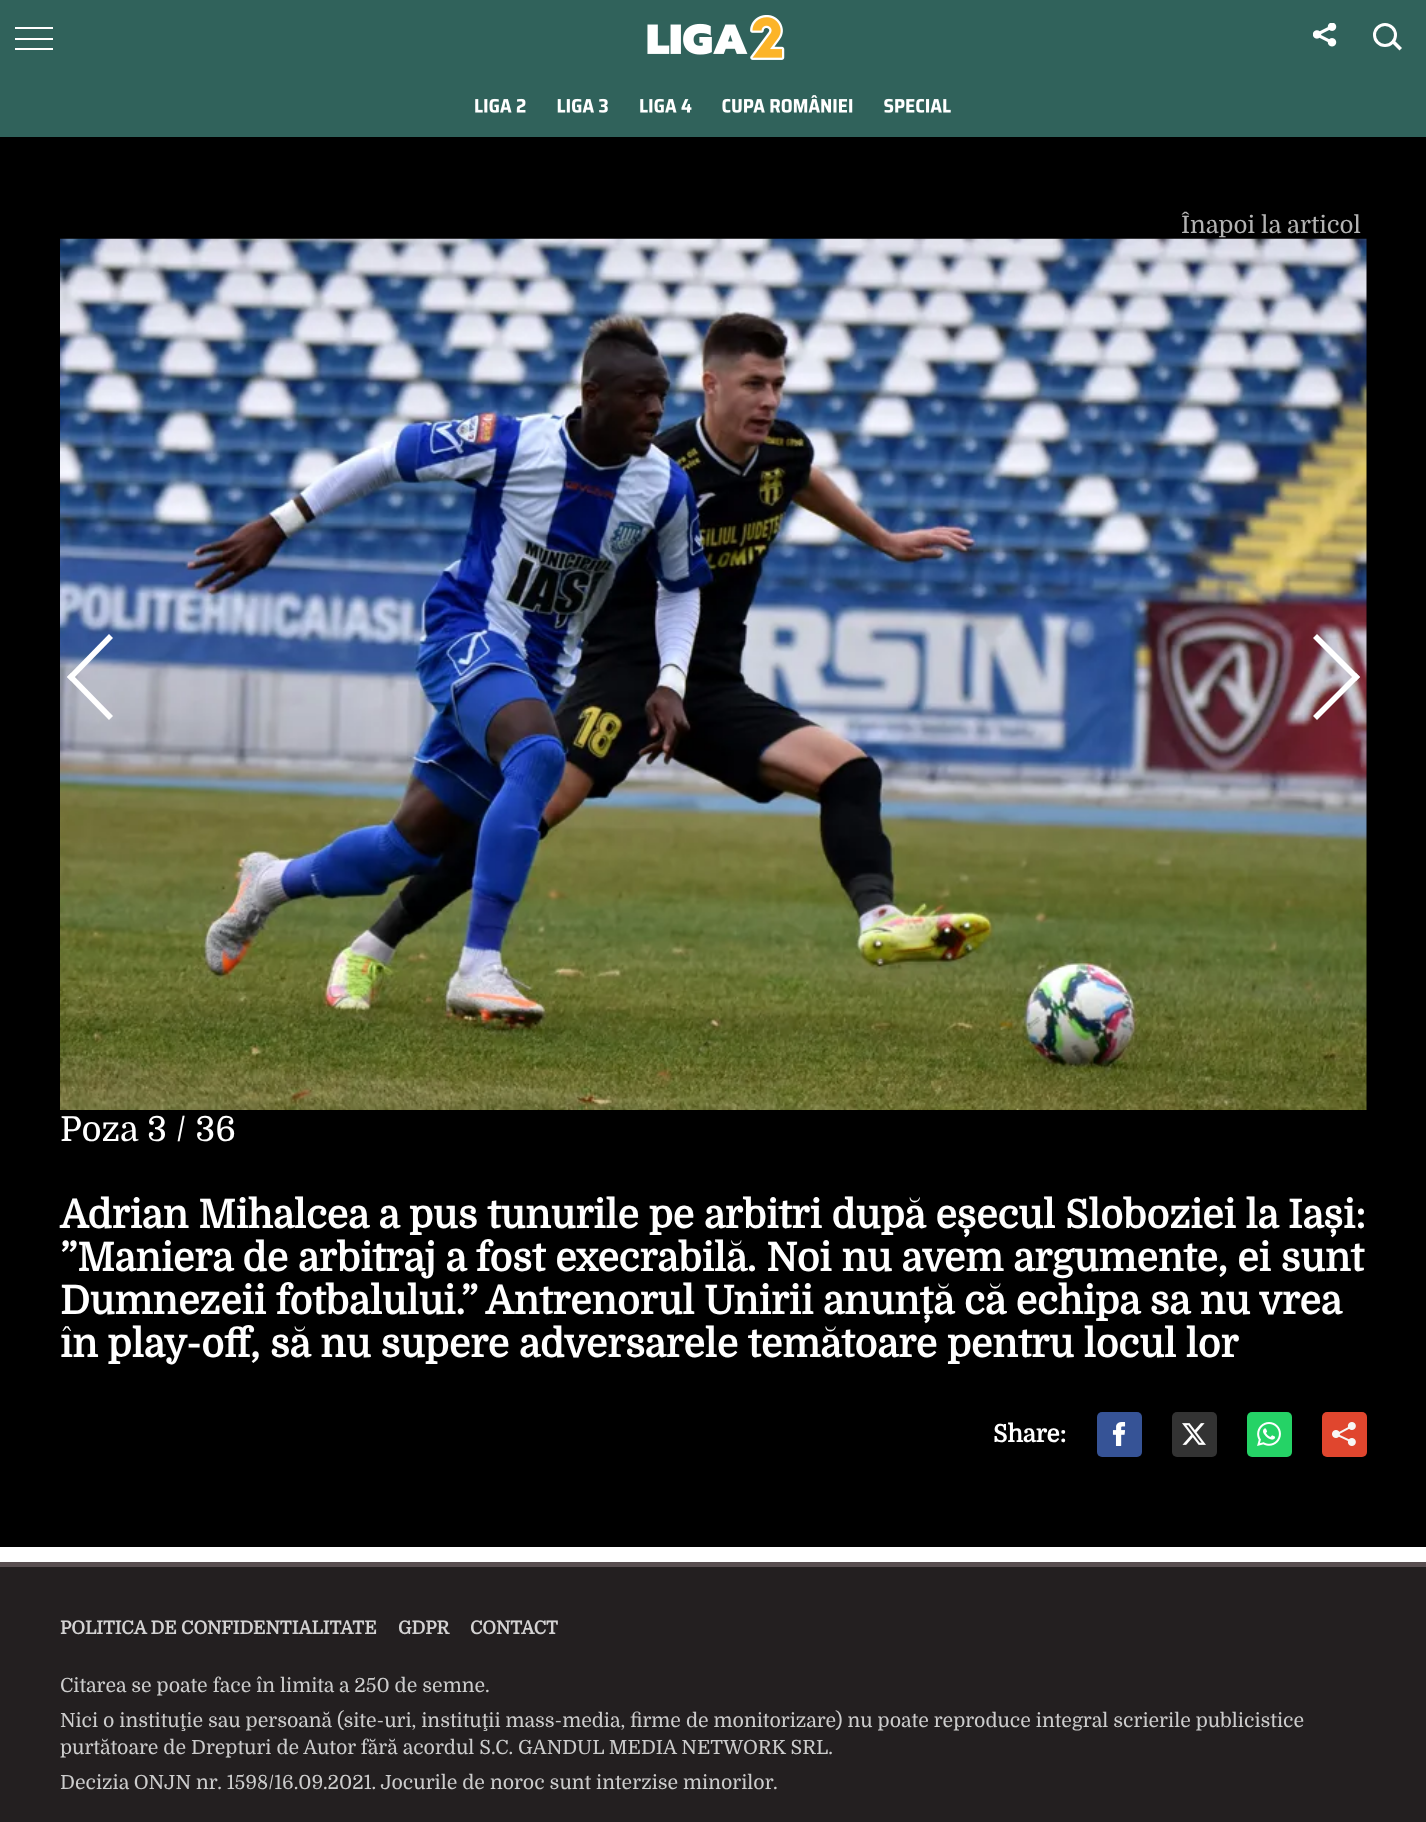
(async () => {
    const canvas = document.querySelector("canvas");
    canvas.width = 1426;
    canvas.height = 1822;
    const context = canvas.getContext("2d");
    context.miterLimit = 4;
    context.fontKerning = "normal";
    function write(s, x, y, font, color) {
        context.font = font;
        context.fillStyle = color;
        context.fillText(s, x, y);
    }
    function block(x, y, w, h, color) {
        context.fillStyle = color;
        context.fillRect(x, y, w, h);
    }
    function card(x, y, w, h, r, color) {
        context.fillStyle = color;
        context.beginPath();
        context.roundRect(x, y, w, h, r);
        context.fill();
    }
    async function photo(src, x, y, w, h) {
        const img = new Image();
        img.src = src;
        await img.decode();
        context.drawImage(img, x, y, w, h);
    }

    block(0, 0, 1426, 1822, "rgb(255, 255, 255)");
    block(0, 0, 1426, 137, "rgb(48, 98, 91)");
    block(15, 38, 38, 2, "rgb(255, 255, 255)");
    block(15, 27, 38, 2, "rgb(255, 255, 255)");
    block(15, 48, 38, 2, "rgb(255, 255, 255)");
    await photo("media/1.png", 647, 15, 138, 45);
    await photo("media/2.png", 1313, 23, 24, 24);
    context.beginPath();
    context.arc(1385, 35, 10.5, 0, Math.PI * 2);
    context.strokeStyle = "rgb(255, 255, 255)";
    context.lineWidth = 3;
    context.stroke();
    context.beginPath();
    context.moveTo(1391, 42);
    context.lineTo(1393.5, 39.5);
    context.lineTo(1402, 48);
    context.lineTo(1399.5, 50.5);
    context.closePath();
    context.fill();
    await photo("media/3.png", 475, 98, 51, 15);
    await photo("media/4.png", 557, 98, 51, 15);
    await photo("media/5.png", 640, 98, 52, 15);
    await photo("media/6.png", 722, 95, 131, 18);
    await photo("media/7.png", 884, 98, 67, 15);
    block(0, 137, 1426, 1410, "rgb(0, 0, 0)");
    write("Înapoi la articol", 1181, 233, "24px Domine", "rgb(179, 179, 179)");
    await photo("media/8.png", 60, 238, 1307, 872);
    context.fillStyle = "rgb(255, 255, 255)";
    context.beginPath();
    context.moveTo(67, 677);
    context.lineTo(109, 634);
    context.lineTo(113, 638);
    context.lineTo(71, 681);
    context.closePath();
    context.fill();
    context.beginPath();
    context.moveTo(71, 673);
    context.lineTo(113, 716);
    context.lineTo(109, 720);
    context.lineTo(67, 677);
    context.closePath();
    context.fill();
    context.beginPath();
    context.moveTo(1317, 634);
    context.lineTo(1360, 677);
    context.lineTo(1356, 681);
    context.lineTo(1313, 638);
    context.closePath();
    context.fill();
    context.beginPath();
    context.moveTo(1313, 716);
    context.lineTo(1356, 673);
    context.lineTo(1360, 677);
    context.lineTo(1317, 720);
    context.closePath();
    context.fill();
    write("Poza 3 / 36", 60, 1141, "34.5px Domine", "rgb(255, 255, 255)");
    write("Adrian Mihalcea a pus tunurile pe arbitri după eșecul Sloboziei la Iași:", 60, 1228, "bold 39px Domine", "rgb(255, 255, 255)");
    write("”Maniera de arbitraj a fost execrabilă. Noi nu avem argumente, ei sunt", 60, 1271, "bold 39px Domine", "rgb(255, 255, 255)");
    write("Dumnezeii fotbalului.” Antrenorul Unirii anunță că echipa sa nu vrea", 60, 1314, "bold 39px Domine", "rgb(255, 255, 255)");
    write("în play-off, să nu supere adversarele temătoare pentru locul lor", 60, 1357, "bold 39px Domine", "rgb(255, 255, 255)");
    write("Share:", 993, 1442, "bold 24px Domine", "rgb(255, 255, 255)");
    card(1097, 1412, 45, 45, 5, "rgb(54, 83, 150)");
    await photo("media/9.png", 1112, 1422, 14, 24);
    card(1172, 1412, 45, 45, 5, "rgb(51, 51, 51)");
    await photo("media/10.png", 1182, 1423, 24, 22);
    card(1247, 1412, 45, 45, 5, "rgb(37, 211, 102)");
    await photo("media/11.png", 1257, 1422, 24, 24);
    card(1322, 1412, 45, 45, 5, "rgb(224, 70, 46)");
    await photo("media/12.png", 1332, 1422, 24, 24);
    block(0, 1567, 1426, 255, "rgb(35, 31, 32)");
    block(0, 1562, 1426, 5, "rgb(89, 79, 81)");
    write("POLITICA DE CONFIDENTIALITATE", 60, 1634, "bold 18px Domine", "rgb(211, 210, 210)");
    write("GDPR", 398, 1634, "bold 18px Domine", "rgb(211, 210, 210)");
    write("CONTACT", 470, 1634, "bold 18px Domine", "rgb(211, 210, 210)");
    write("Citarea se poate face în limita a 250 de semne.", 60, 1692, "19.5px Domine", "rgb(204, 204, 204)");
    write("Nici o instituţie sau persoană (site-uri, instituţii mass-media, firme de monitorizare) nu poate reproduce integral scrierile publicistice", 60, 1727, "19.5px Domine", "rgb(204, 204, 204)");
    write("purtătoare de Drepturi de Autor fără acordul S.C. GANDUL MEDIA NETWORK SRL.", 60, 1754, "19.5px Domine", "rgb(204, 204, 204)");
    write("Decizia ONJN nr. 1598/16.09.2021. Jocurile de noroc sunt interzise minorilor.", 60, 1789, "19.5px Domine", "rgb(204, 204, 204)");
})();
